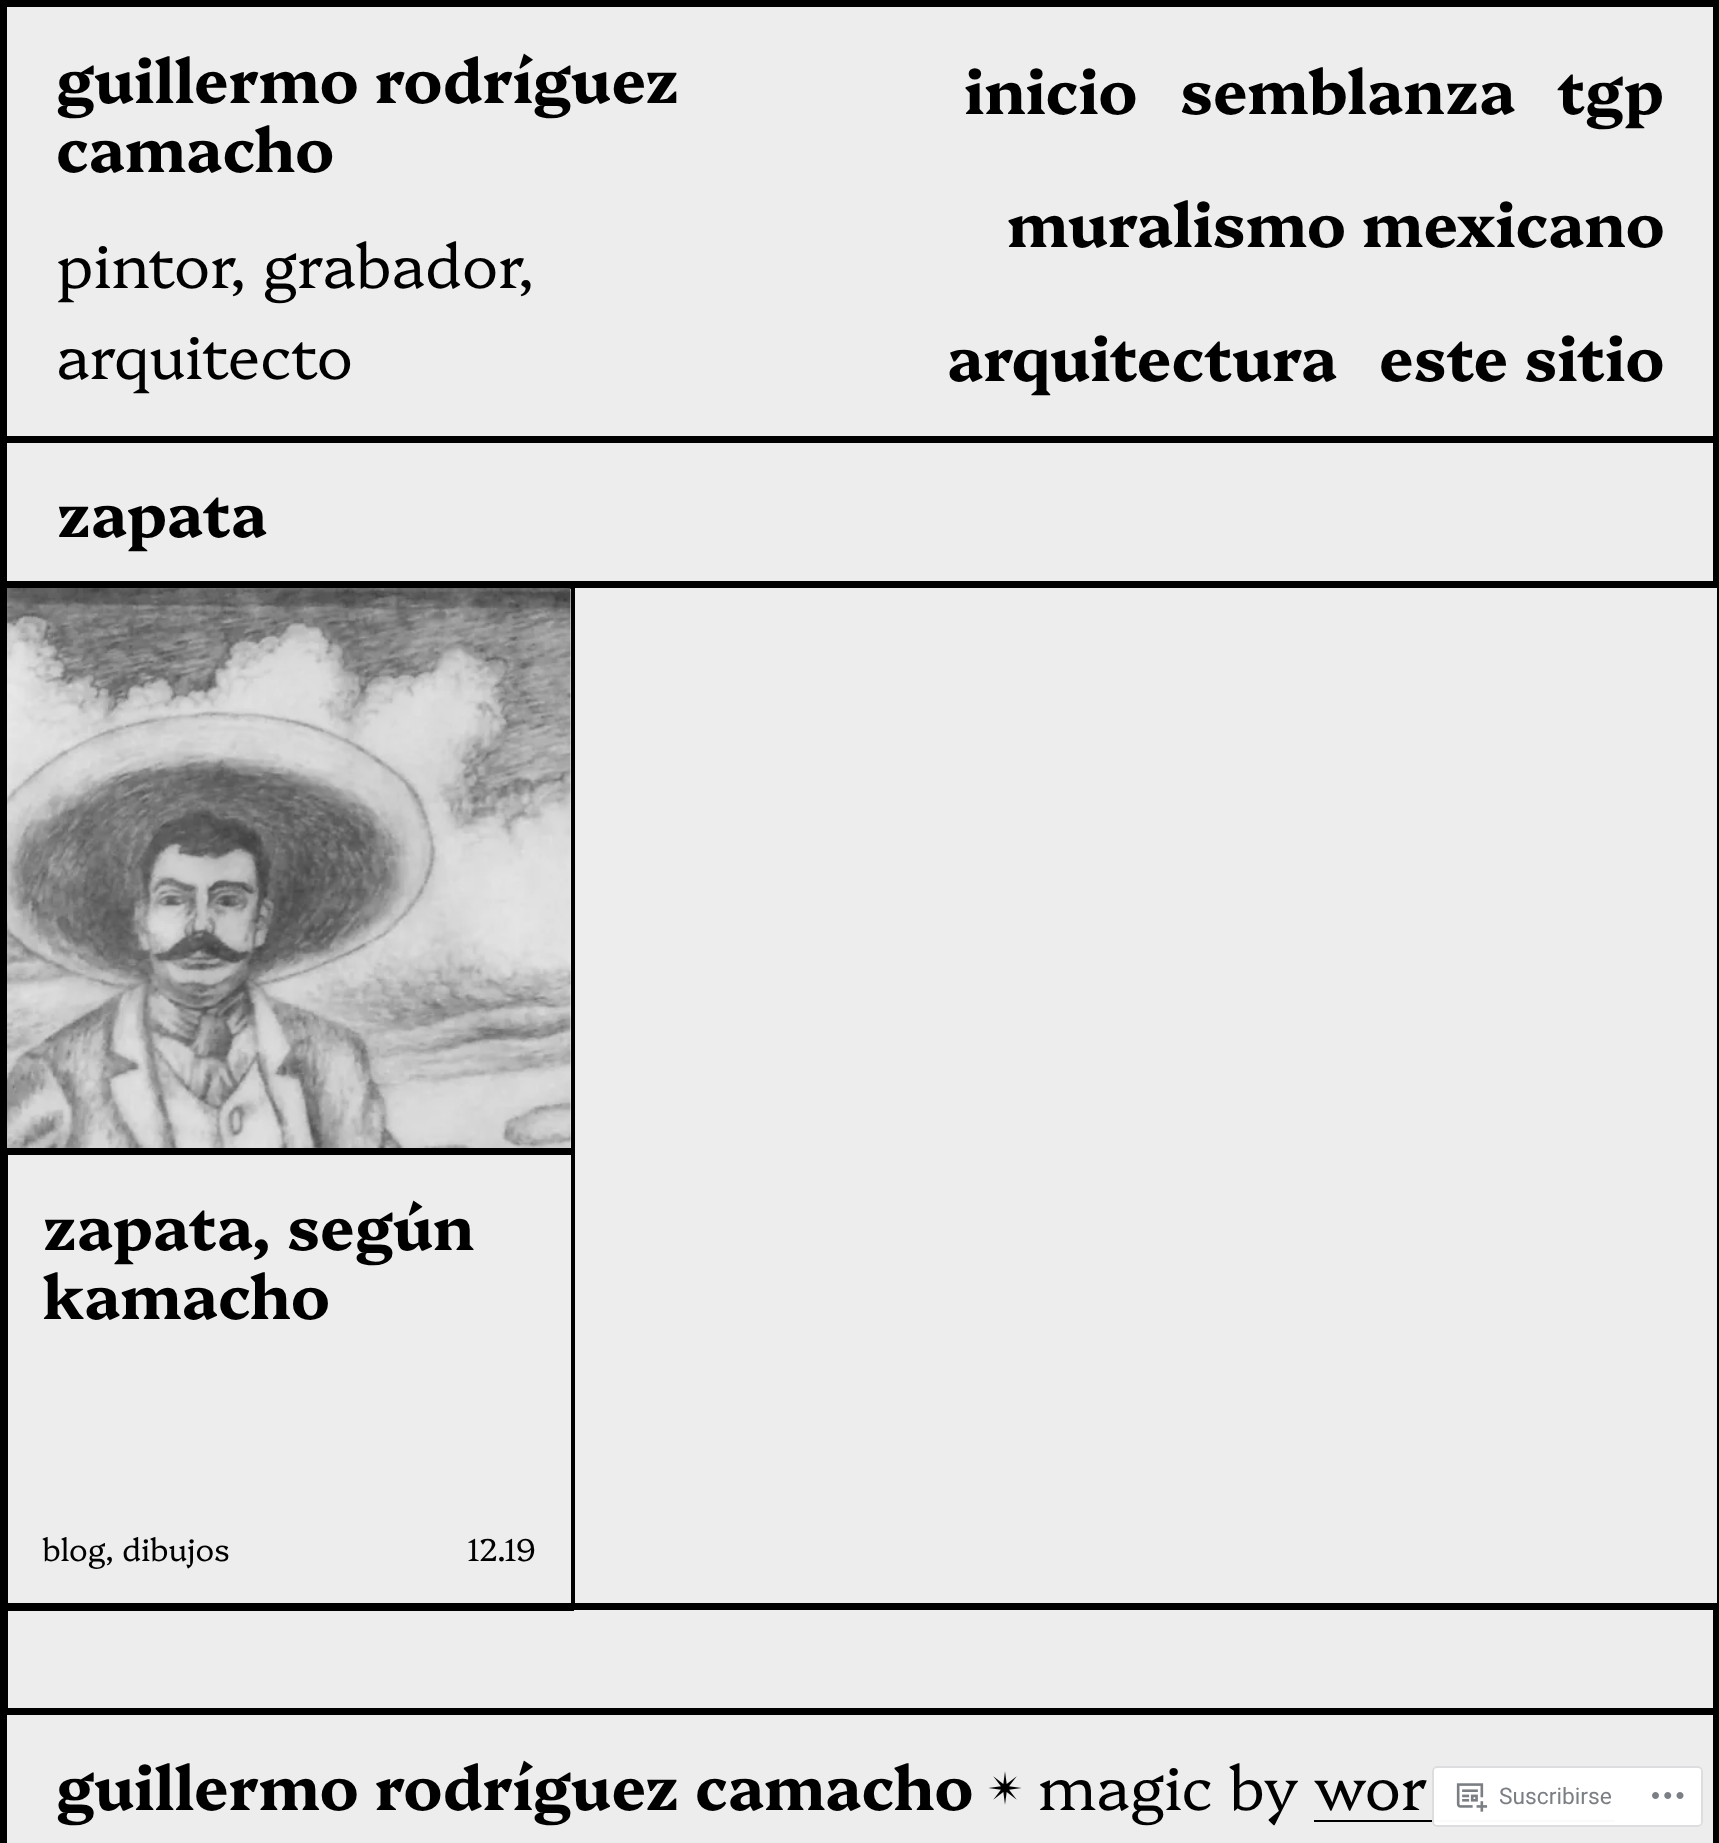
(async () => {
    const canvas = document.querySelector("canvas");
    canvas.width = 1719;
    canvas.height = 1843;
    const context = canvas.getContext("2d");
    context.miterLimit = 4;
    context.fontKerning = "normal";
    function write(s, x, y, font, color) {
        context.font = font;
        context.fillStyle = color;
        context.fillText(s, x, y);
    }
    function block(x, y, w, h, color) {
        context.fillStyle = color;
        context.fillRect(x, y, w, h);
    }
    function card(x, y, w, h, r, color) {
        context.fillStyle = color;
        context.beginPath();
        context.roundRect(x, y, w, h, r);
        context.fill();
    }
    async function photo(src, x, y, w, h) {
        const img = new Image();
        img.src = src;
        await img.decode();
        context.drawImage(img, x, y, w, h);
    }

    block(0, 0, 1719, 1843, "rgb(237, 237, 237)");
    context.strokeStyle = "rgb(0, 0, 0)";
    context.lineWidth = 7;
    context.strokeRect(3.5, 3.5, 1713, 436);
    write("guillermo rodríguez", 56, 103, "bold 61px Platypi", "rgb(0, 0, 0)");
    write("camacho", 56, 172, "bold 61px Platypi", "rgb(0, 0, 0)");
    write("pintor, grabador,", 56, 288, "300 61px Platypi", "rgb(0, 0, 0)");
    write("arquitecto", 56, 379, "300 61px Platypi", "rgb(0, 0, 0)");
    write("inicio", 964, 114, "bold 61px Platypi", "rgb(0, 0, 0)");
    write("semblanza", 1180, 114, "bold 61px Platypi", "rgb(0, 0, 0)");
    write("tgp", 1557, 114, "bold 61px Platypi", "rgb(0, 0, 0)");
    write("muralismo mexicano", 1007, 247, "bold 61px Platypi", "rgb(0, 0, 0)");
    write("arquitectura", 947, 381, "bold 61px Platypi", "rgb(0, 0, 0)");
    write("este sitio", 1379, 381, "bold 61px Platypi", "rgb(0, 0, 0)");
    block(1713, 443, 6, 145, "rgb(0, 0, 0)");
    block(0, 581, 1719, 7, "rgb(0, 0, 0)");
    block(0, 443, 7, 145, "rgb(0, 0, 0)");
    write("zapata", 56, 537, "bold 61px Platypi", "rgb(0, 0, 0)");
    block(1717, 585, 2, 1130, "rgb(0, 0, 0)");
    block(0, 585, 4, 1130, "rgb(0, 0, 0)");
    block(4, 1603, 1713, 7, "rgb(0, 0, 0)");
    block(1713, 1603, 4, 112, "rgb(0, 0, 0)");
    block(4, 1708, 1713, 7, "rgb(0, 0, 0)");
    block(4, 1155, 4, 560, "rgb(0, 0, 0)");
    block(4, 588, 570, 1, "rgb(0, 0, 0)");
    block(571, 585, 4, 570, "rgb(0, 0, 0)");
    block(4, 1148, 570, 7, "rgb(0, 0, 0)");
    block(4, 585, 4, 570, "rgb(0, 0, 0)");
    await photo("media/1.png", 7, 588, 564, 560);
    block(571, 1155, 4, 455, "rgb(0, 0, 0)");
    block(4, 1610, 570, 1, "rgb(0, 0, 0)");
    write("zapata, según", 42, 1250, "bold 61px Platypi", "rgb(0, 0, 0)");
    write("kamacho", 42, 1319, "bold 61px Platypi", "rgb(0, 0, 0)");
    write("blog", 42, 1561, "300 31.5px Platypi", "rgb(0, 0, 0)");
    write(", dibujos", 105, 1561, "300 31.5px Platypi", "rgb(0, 0, 0)");
    write("12.19", 467, 1561, "300 31.5px Platypi", "rgb(0, 0, 0)");
    block(1713, 1715, 6, 128, "rgb(0, 0, 0)");
    block(0, 1715, 7, 128, "rgb(0, 0, 0)");
    write("guillermo rodríguez camacho", 56, 1810, "bold 61px Platypi", "rgb(0, 0, 0)");
    write("✴︎", 987, 1804, "44px DejaVu Sans", "rgb(0, 0, 0)");
    write("magic by wor", 1038, 1810, "300 61px Platypi", "rgb(0, 0, 0)");
    block(1314, 1820, 301, 2, "rgb(0, 0, 0)");
    card(1432, 1766, 271, 61, 5, "rgba(255, 255, 255, 0.98)");
    context.beginPath();
    context.roundRect(1433, 1767, 269, 59, 4);
    context.strokeStyle = "rgba(220, 220, 222, 0.98)";
    context.lineWidth = 2;
    context.stroke();
    await photo("media/2.png", 1456, 1783, 32, 29);
    write("Suscribirse", 1499, 1804, "22.75px Roboto", "rgb(123, 127, 132)");
    await photo("media/3.png", 1652, 1792, 32, 7);
})();
